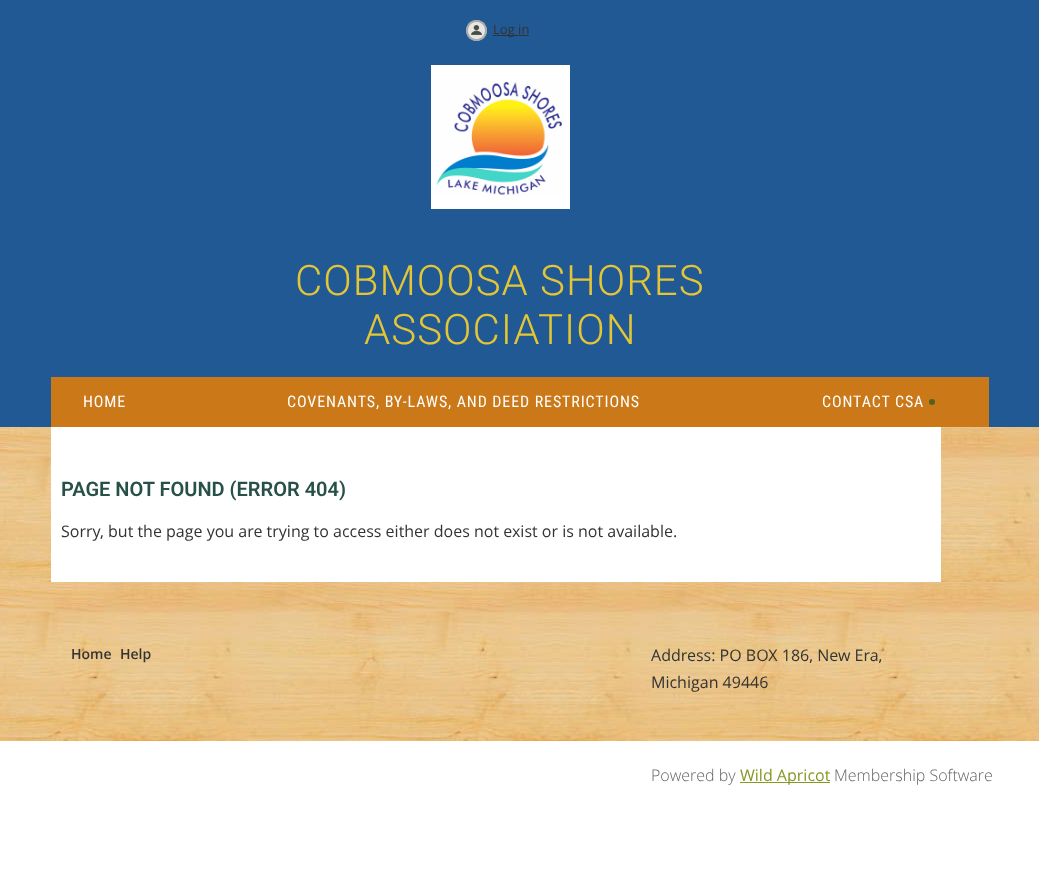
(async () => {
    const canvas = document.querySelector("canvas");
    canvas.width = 1039;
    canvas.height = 872;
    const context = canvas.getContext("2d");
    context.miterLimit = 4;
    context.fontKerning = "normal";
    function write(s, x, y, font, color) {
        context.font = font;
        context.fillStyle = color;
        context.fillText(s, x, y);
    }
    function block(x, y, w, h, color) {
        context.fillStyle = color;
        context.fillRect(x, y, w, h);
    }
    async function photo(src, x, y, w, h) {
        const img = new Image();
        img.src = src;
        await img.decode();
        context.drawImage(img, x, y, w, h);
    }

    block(0, 0, 1039, 872, "rgb(255, 255, 255)");
    block(0, 0, 1039, 427, "rgb(33, 89, 149)");
    await photo("media/1.png", 466, 20, 21, 21);
    block(493, 35, 36, 1, "rgb(51, 51, 51)");
    write("Log in", 493, 34, "13px Open Sans", "rgb(51, 51, 51)");
    await photo("media/2.png", 431, 65, 139, 144);
    context.letterSpacing = "1px";
    write("COBMOOSA SHORES", 295, 295, "300 42px Roboto", "rgb(228, 198, 53)");
    write("ASSOCIATION", 364, 344, "300 42px Roboto", "rgb(228, 198, 53)");
    block(51, 377, 938, 50, "rgb(202, 120, 24)");
    context.letterSpacing = "0.9px";
    write("HOME", 83, 407, "16px Roboto Condensed", "rgb(255, 255, 255)");
    write("COVENANTS, BY-LAWS, AND DEED RESTRICTIONS", 287, 407, "16px Roboto Condensed", "rgb(255, 255, 255)");
    write("CONTACT CSA", 822, 407, "16px Roboto Condensed", "rgb(255, 255, 255)");
    context.fillStyle = "rgb(84, 97, 30)";
    context.beginPath();
    context.arc(932, 402, 3, 0, Math.PI * 2);
    context.fill();
    await photo("media/3.png", 0, 427, 1039, 155);
    block(51, 427, 890, 155, "rgb(255, 255, 255)");
    context.letterSpacing = "0px";
    write("PAGE NOT FOUND (ERROR 404)", 61, 496, "600 20px Roboto", "rgb(39, 81, 72)");
    write("Sorry, but the page you are trying to access either does not exist or is not available.", 61, 537, "16px Open Sans", "rgb(51, 51, 51)");
    await photo("media/4.png", 0, 582, 1039, 159);
    write("Home", 71, 659, "600 14px Open Sans", "rgb(51, 51, 51)");
    write("Help", 120, 659, "600 14px Open Sans", "rgb(51, 51, 51)");
    write("Address: PO BOX 186, New Era,", 651, 661, "16px Open Sans", "rgb(51, 51, 51)");
    write("Michigan 49446", 651, 688, "16px Open Sans", "rgb(51, 51, 51)");
    write("Powered by", 651, 781, "300 16px Open Sans", "rgb(100, 100, 100)");
    block(740, 782, 90, 1, "rgb(131, 153, 36)");
    write("Wild Apricot", 740, 781, "16px Open Sans", "rgb(131, 153, 36)");
    write("Membership Software", 834, 781, "300 16px Open Sans", "rgb(100, 100, 100)");
})();
